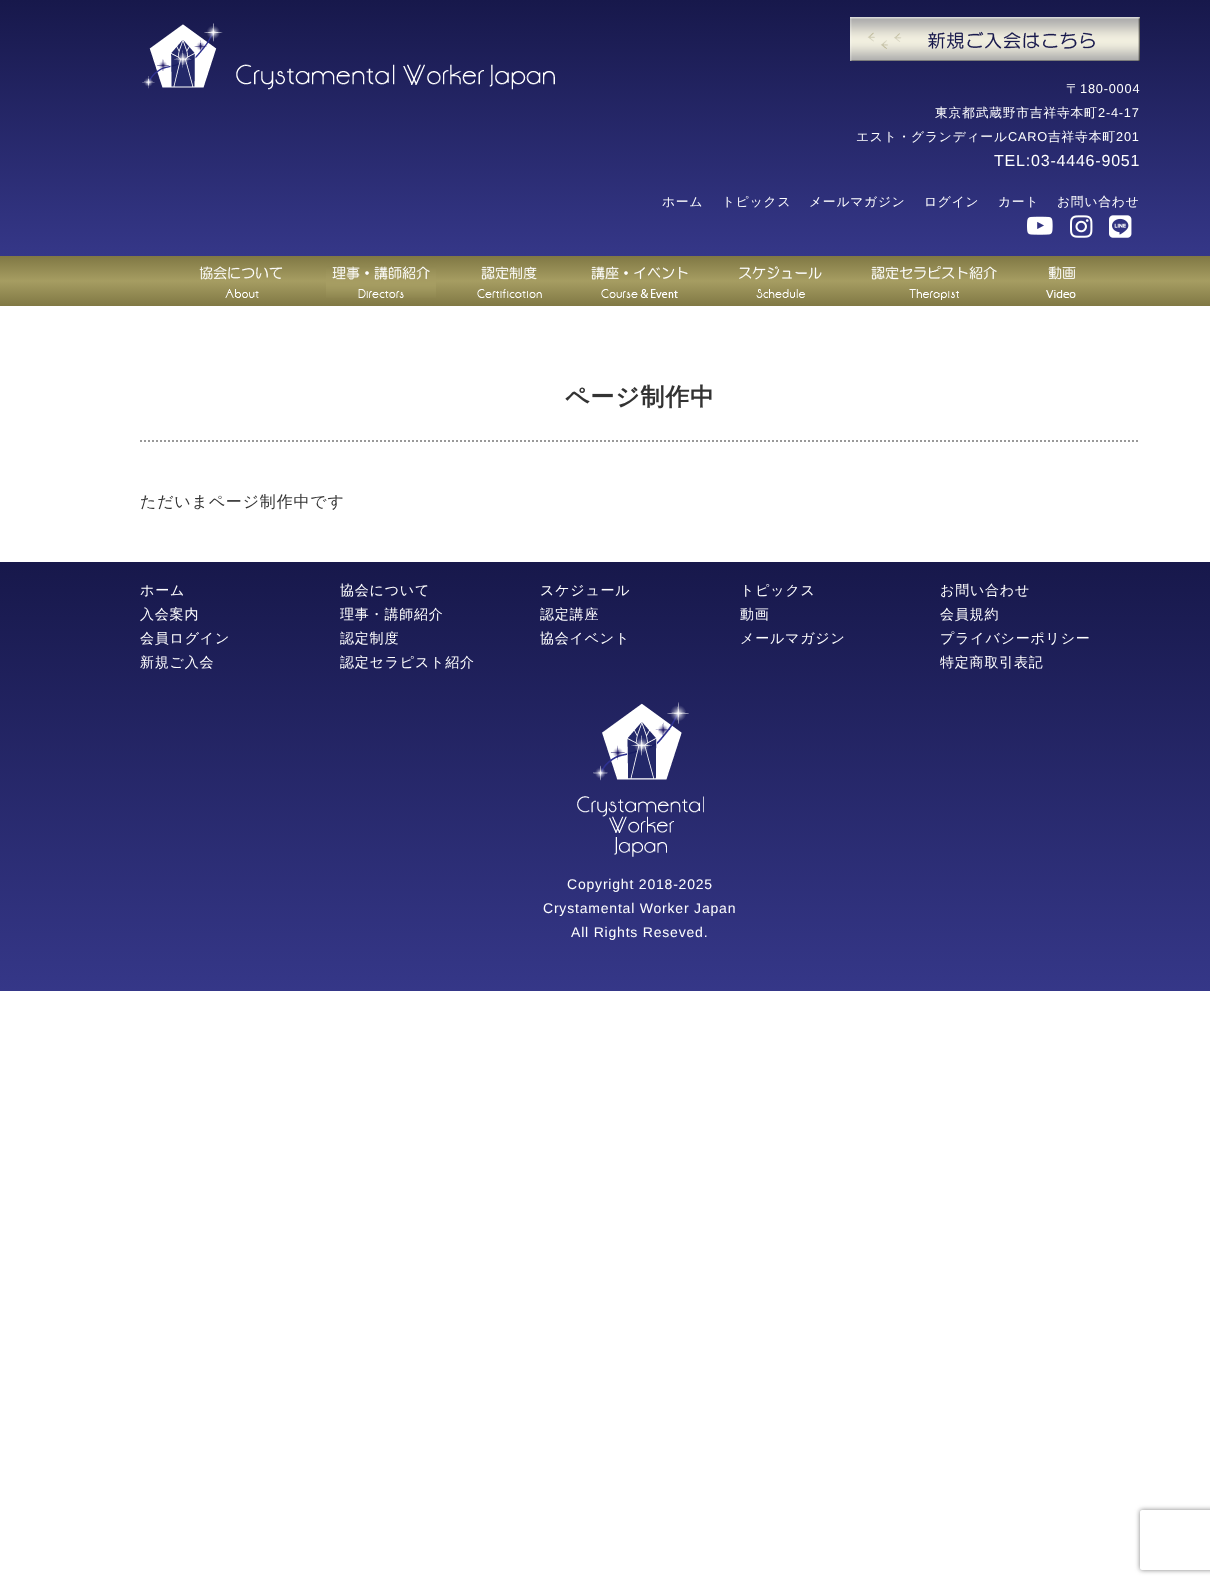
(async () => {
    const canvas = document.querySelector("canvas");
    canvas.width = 1210;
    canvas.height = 1584;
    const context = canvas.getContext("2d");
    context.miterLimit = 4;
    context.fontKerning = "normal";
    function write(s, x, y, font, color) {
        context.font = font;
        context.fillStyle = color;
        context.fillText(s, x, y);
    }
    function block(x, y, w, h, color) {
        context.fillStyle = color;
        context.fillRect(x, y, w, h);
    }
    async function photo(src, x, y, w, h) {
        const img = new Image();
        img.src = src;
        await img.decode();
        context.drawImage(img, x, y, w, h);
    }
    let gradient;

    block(0, 0, 1210, 1584, "rgb(255, 255, 255)");
    gradient = context.createLinearGradient(640, 0, 640, 256);
    gradient.addColorStop(0, "rgb(23, 24, 75)");
    gradient.addColorStop(1, "rgb(53, 55, 136)");
    context.fillStyle = gradient;
    context.fillRect(0, 0, 1210, 256);
    await photo("media/1.png", 142, 23, 413, 67);
    await photo("media/2.png", 850, 17, 290, 44);
    context.letterSpacing = "0.8px";
    write("〒", 1066, 93, "500 12.75px WenQuanYi Zen Hei", "rgb(255, 255, 255)");
    write("180-0004", 1080, 93, "12.75px Liberation Sans", "rgb(255, 255, 255)");
    write("東京都武蔵野市吉祥寺本町", 935, 117, "500 12.75px WenQuanYi Zen Hei", "rgb(255, 255, 255)");
    write("2-4-17", 1098, 117, "12.75px Liberation Sans", "rgb(255, 255, 255)");
    write("エスト・グランディール", 856, 141, "500 12.75px WenQuanYi Zen Hei", "rgb(255, 255, 255)");
    write("CARO", 1008, 141, "12.75px Liberation Sans", "rgb(255, 255, 255)");
    write("吉祥寺本町", 1048, 141, "500 12.75px WenQuanYi Zen Hei", "rgb(255, 255, 255)");
    write("201", 1116, 141, "12.75px Liberation Sans", "rgb(255, 255, 255)");
    write("TEL:03-4446-9051", 994, 166, "16px Liberation Sans", "rgb(255, 255, 255)");
    write("ホーム", 662, 206, "500 12.75px WenQuanYi Zen Hei", "rgb(255, 255, 255)");
    write("トピックス", 722, 206, "500 12.75px WenQuanYi Zen Hei", "rgb(255, 255, 255)");
    write("メールマガジン", 809, 206, "500 12.75px WenQuanYi Zen Hei", "rgb(255, 255, 255)");
    write("ログイン", 924, 206, "500 12.75px WenQuanYi Zen Hei", "rgb(255, 255, 255)");
    write("カート", 998, 206, "500 12.75px WenQuanYi Zen Hei", "rgb(255, 255, 255)");
    write("お問い合わせ", 1057, 206, "500 12.75px WenQuanYi Zen Hei", "rgb(255, 255, 255)");
    await photo("media/3.png", 1027, 216, 26, 19);
    await photo("media/4.png", 1070, 215, 23, 23);
    await photo("media/5.png", 1109, 215, 23, 23);
    gradient = context.createLinearGradient(640, 256, 640, 306);
    gradient.addColorStop(0, "rgb(128, 120, 68)");
    gradient.addColorStop(0.5, "rgb(166, 157, 98)");
    gradient.addColorStop(1, "rgb(128, 120, 68)");
    context.fillStyle = gradient;
    context.fillRect(0, 256, 1210, 50);
    await photo("media/6.png", 199, 266, 84, 32);
    await photo("media/7.png", 326, 266, 110, 32);
    await photo("media/8.png", 477, 266, 65, 32);
    await photo("media/9.png", 591, 266, 97, 32);
    await photo("media/10.png", 739, 266, 83, 32);
    await photo("media/11.png", 871, 266, 126, 34);
    await photo("media/12.png", 1046, 266, 30, 32);
    context.beginPath();
    context.moveTo(140, 441);
    context.lineTo(1140, 441);
    context.strokeStyle = "rgb(153, 153, 153)";
    context.lineWidth = 2;
    context.setLineDash([2, 2]);
    context.stroke();
    write("ページ制作中", 565, 405, "bold 24px WenQuanYi Zen Hei", "rgb(51, 51, 51)");
    write("ただいまページ制作中です", 140, 507, "500 16px WenQuanYi Zen Hei", "rgb(51, 51, 51)");
    gradient = context.createLinearGradient(640, 562, 640, 991);
    gradient.addColorStop(0, "rgb(23, 24, 75)");
    gradient.addColorStop(1, "rgb(53, 55, 136)");
    context.fillStyle = gradient;
    context.fillRect(0, 562, 1210, 429);
    write("ホーム", 140, 595, "500 14px WenQuanYi Zen Hei", "rgb(255, 255, 255)");
    write("入会案内", 140, 619, "500 14px WenQuanYi Zen Hei", "rgb(255, 255, 255)");
    write("会員ログイン", 140, 643, "500 14px WenQuanYi Zen Hei", "rgb(255, 255, 255)");
    write("新規ご入会", 140, 667, "500 14px WenQuanYi Zen Hei", "rgb(255, 255, 255)");
    write("協会について", 340, 595, "500 14px WenQuanYi Zen Hei", "rgb(255, 255, 255)");
    write("理事・講師紹介", 340, 619, "500 14px WenQuanYi Zen Hei", "rgb(255, 255, 255)");
    write("認定制度", 340, 643, "500 14px WenQuanYi Zen Hei", "rgb(255, 255, 255)");
    write("認定セラピスト紹介", 340, 667, "500 14px WenQuanYi Zen Hei", "rgb(255, 255, 255)");
    write("スケジュール", 540, 595, "500 14px WenQuanYi Zen Hei", "rgb(255, 255, 255)");
    write("認定講座", 540, 619, "500 14px WenQuanYi Zen Hei", "rgb(255, 255, 255)");
    write("協会イベント", 540, 643, "500 14px WenQuanYi Zen Hei", "rgb(255, 255, 255)");
    write("トピックス", 740, 595, "500 14px WenQuanYi Zen Hei", "rgb(255, 255, 255)");
    write("動画", 740, 619, "500 14px WenQuanYi Zen Hei", "rgb(255, 255, 255)");
    write("メールマガジン", 740, 643, "500 14px WenQuanYi Zen Hei", "rgb(255, 255, 255)");
    write("お問い合わせ", 940, 595, "500 14px WenQuanYi Zen Hei", "rgb(255, 255, 255)");
    write("会員規約", 940, 619, "500 14px WenQuanYi Zen Hei", "rgb(255, 255, 255)");
    write("プライバシーポリシー", 940, 643, "500 14px WenQuanYi Zen Hei", "rgb(255, 255, 255)");
    write("特定商取引表記", 940, 667, "500 14px WenQuanYi Zen Hei", "rgb(255, 255, 255)");
    await photo("media/13.png", 577, 702, 127, 155);
    write("Copyright 2018-2025", 567, 889, "14px Liberation Sans", "rgb(255, 255, 255)");
    write("Crystamental Worker Japan", 543, 913, "14px Liberation Sans", "rgb(255, 255, 255)");
    write("All Rights Reseved.", 571, 937, "14px Liberation Sans", "rgb(255, 255, 255)");
    context.save();
    context.beginPath();
    context.moveTo(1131, 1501);
    context.lineTo(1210, 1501);
    context.lineTo(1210, 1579);
    context.lineTo(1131, 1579);
    context.closePath();
    context.moveTo(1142, 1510);
    context.lineTo(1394, 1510);
    context.bezierCurveTo(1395, 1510, 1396, 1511, 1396, 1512);
    context.lineTo(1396, 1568);
    context.bezierCurveTo(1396, 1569, 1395, 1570, 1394, 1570);
    context.lineTo(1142, 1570);
    context.bezierCurveTo(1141, 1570, 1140, 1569, 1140, 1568);
    context.lineTo(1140, 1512);
    context.bezierCurveTo(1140, 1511, 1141, 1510, 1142, 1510);
    context.closePath();
    context.clip("evenodd");
    context.fillStyle = "rgb(128, 128, 128)";
    context.filter = "blur(2.5px)";
    context.beginPath();
    context.roundRect(1140, 1510, 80, 60, 2);
    context.fill();
    context.filter = "none";
    context.restore();
})();
